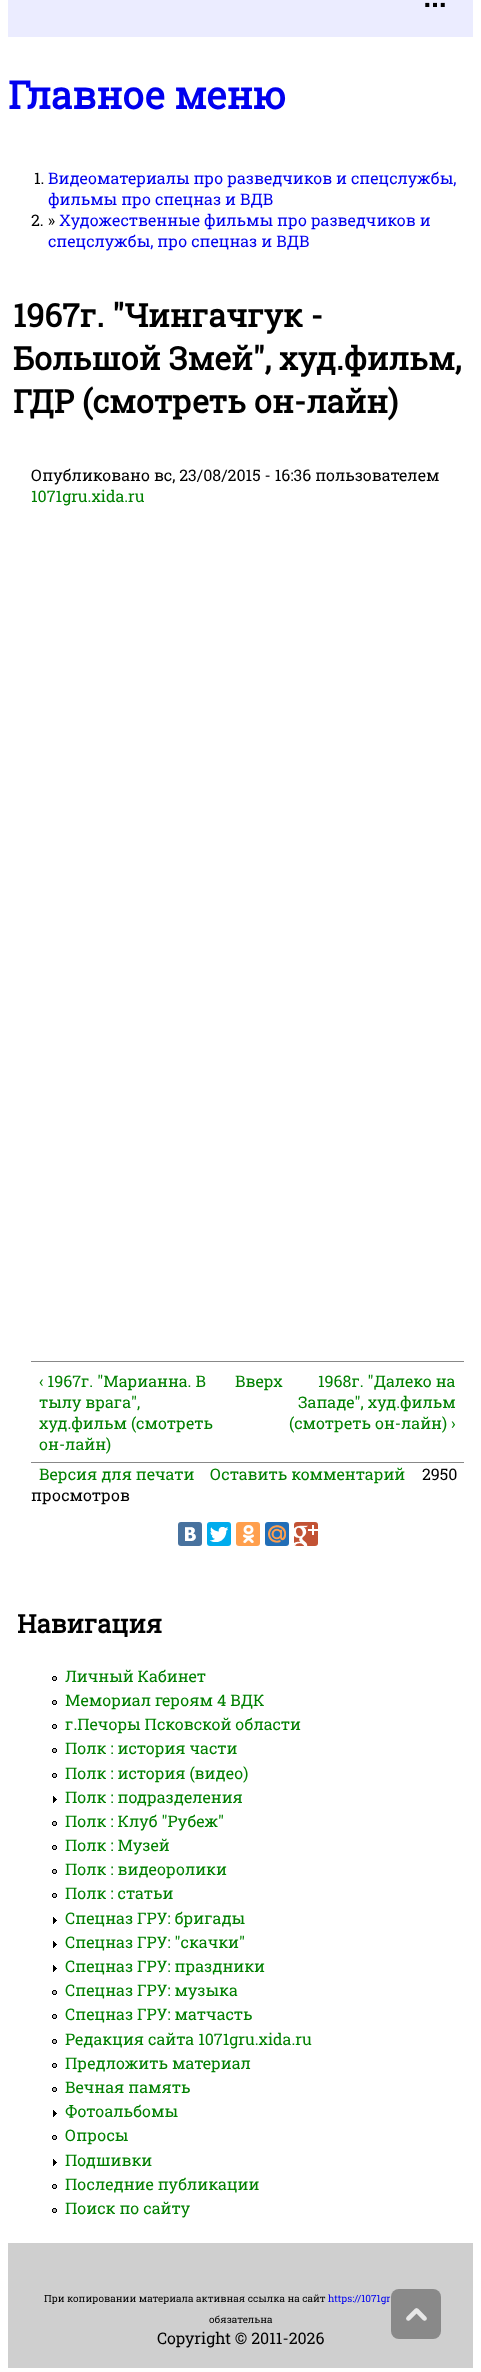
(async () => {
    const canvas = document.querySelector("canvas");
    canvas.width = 481;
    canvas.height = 2372;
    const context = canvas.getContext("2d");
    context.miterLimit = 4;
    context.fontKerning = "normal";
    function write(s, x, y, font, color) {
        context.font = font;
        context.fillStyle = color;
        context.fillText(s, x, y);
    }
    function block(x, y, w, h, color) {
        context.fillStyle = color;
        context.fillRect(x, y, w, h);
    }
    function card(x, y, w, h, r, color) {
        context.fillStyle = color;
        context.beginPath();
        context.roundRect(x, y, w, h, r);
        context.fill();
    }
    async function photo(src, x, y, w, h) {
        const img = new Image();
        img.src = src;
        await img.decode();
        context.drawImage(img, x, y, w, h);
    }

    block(0, 0, 481, 2372, "rgb(255, 255, 255)");
    block(8, 0, 465, 37, "rgb(235, 236, 255)");
    write("...", 423, 7, "bold 32px Roboto Slab", "rgb(0, 0, 0)");
    write("Главное меню", 8, 109, "bold 38.5px Roboto Slab", "rgb(0, 0, 238)");
    write("1.", 34, 184, "16px Roboto Slab", "rgb(0, 0, 0)");
    write("Видеоматериалы про разведчиков и спецслужбы,", 48, 184, "16px Roboto Slab", "rgb(0, 0, 238)");
    write("фильмы про спецназ и ВДВ", 48, 205, "16px Roboto Slab", "rgb(0, 0, 238)");
    write("2. »", 31, 226, "16px Roboto Slab", "rgb(0, 0, 0)");
    write("Художественные фильмы про разведчиков и", 59, 226, "16px Roboto Slab", "rgb(0, 0, 238)");
    write("спецслужбы, про спецназ и ВДВ", 48, 247, "16px Roboto Slab", "rgb(0, 0, 238)");
    write("1967г. \"Чингачгук -", 13, 327, "bold 32px Roboto Slab", "rgb(0, 0, 0)");
    write("Большой Змей\", худ.фильм,", 13, 370, "bold 32px Roboto Slab", "rgb(0, 0, 0)");
    write("ГДР (смотреть он-лайн)", 13, 413, "bold 32px Roboto Slab", "rgb(0, 0, 0)");
    write("Опубликовано вс, 23/08/2015 - 16:36 пользователем", 31, 481, "16px Roboto Slab", "rgb(0, 0, 0)");
    write("1071gru.xida.ru", 31, 502, "16px Roboto Slab", "rgb(0, 128, 0)");
    block(31, 1361, 433, 1, "rgb(136, 136, 136)");
    block(31, 1462, 433, 1, "rgb(136, 136, 136)");
    write("‹ 1967г. \"Марианна. В", 39, 1387, "16px Roboto Slab", "rgb(0, 128, 0)");
    write("тылу врага\",", 39, 1408, "16px Roboto Slab", "rgb(0, 128, 0)");
    write("худ.фильм (смотреть", 39, 1429, "16px Roboto Slab", "rgb(0, 128, 0)");
    write("он-лайн)", 39, 1450, "16px Roboto Slab", "rgb(0, 128, 0)");
    write("Вверх", 235, 1387, "16px Roboto Slab", "rgb(0, 128, 0)");
    write("1968г. \"Далеко на", 318, 1387, "16px Roboto Slab", "rgb(0, 128, 0)");
    write("Западе\", худ.фильм", 298, 1408, "16px Roboto Slab", "rgb(0, 128, 0)");
    write("(смотреть он-лайн) ›", 289, 1429, "16px Roboto Slab", "rgb(0, 128, 0)");
    write("Версия для печати", 39, 1480, "16px Roboto Slab", "rgb(0, 128, 0)");
    write("Оставить комментарий", 210, 1480, "16px Roboto Slab", "rgb(0, 128, 0)");
    write("2950", 422, 1480, "16px Roboto Slab", "rgb(0, 0, 0)");
    write("просмотров", 31, 1501, "16px Roboto Slab", "rgb(0, 0, 0)");
    card(178, 1522, 24, 24, 3, "rgb(72, 114, 158)");
    await photo("media/1.png", 185, 1527, 11, 14);
    card(207, 1522, 24, 24, 3, "rgb(0, 172, 237)");
    await photo("media/2.png", 210, 1527, 18, 15);
    card(236, 1522, 24, 24, 3, "rgb(255, 159, 77)");
    await photo("media/3.png", 243, 1525, 11, 18);
    card(265, 1522, 24, 24, 3, "rgb(34, 110, 183)");
    await photo("media/4.png", 268, 1525, 18, 18);
    card(294, 1522, 24, 24, 3, "rgb(194, 82, 52)");
    await photo("media/5.png", 294, 1525, 24, 21);
    write("Навигация", 17, 1633, "bold 25.5px Roboto Slab", "rgb(0, 0, 0)");
    await photo("media/6.png", 52, 1676, 5, 5);
    write("Личный Кабинет", 65, 1682, "16px Roboto Slab", "rgb(0, 128, 0)");
    await photo("media/6.png", 52, 1700, 5, 5);
    write("Мемориал героям 4 ВДК", 65, 1706, "16px Roboto Slab", "rgb(0, 128, 0)");
    await photo("media/6.png", 52, 1724, 5, 5);
    write("г.Печоры Псковской области", 65, 1730, "16px Roboto Slab", "rgb(0, 128, 0)");
    await photo("media/6.png", 52, 1748, 5, 5);
    write("Полк : история части", 65, 1754, "16px Roboto Slab", "rgb(0, 128, 0)");
    await photo("media/6.png", 52, 1773, 5, 5);
    write("Полк : история (видео)", 65, 1779, "16px Roboto Slab", "rgb(0, 128, 0)");
    await photo("media/7.png", 53, 1796, 4, 7);
    write("Полк : подразделения", 65, 1803, "16px Roboto Slab", "rgb(0, 128, 0)");
    await photo("media/6.png", 52, 1821, 5, 5);
    write("Полк : Клуб \"Рубеж\"", 65, 1827, "16px Roboto Slab", "rgb(0, 128, 0)");
    await photo("media/6.png", 52, 1845, 5, 5);
    write("Полк : Музей", 65, 1851, "16px Roboto Slab", "rgb(0, 128, 0)");
    await photo("media/6.png", 52, 1869, 5, 5);
    write("Полк : видеоролики", 65, 1875, "16px Roboto Slab", "rgb(0, 128, 0)");
    await photo("media/6.png", 52, 1893, 5, 5);
    write("Полк : статьи", 65, 1899, "16px Roboto Slab", "rgb(0, 128, 0)");
    await photo("media/7.png", 53, 1917, 4, 7);
    write("Спецназ ГРУ: бригады", 65, 1924, "16px Roboto Slab", "rgb(0, 128, 0)");
    await photo("media/7.png", 53, 1941, 4, 7);
    write("Спецназ ГРУ: \"скачки\"", 65, 1948, "16px Roboto Slab", "rgb(0, 128, 0)");
    await photo("media/7.png", 53, 1965, 4, 7);
    write("Спецназ ГРУ: праздники", 65, 1972, "16px Roboto Slab", "rgb(0, 128, 0)");
    await photo("media/6.png", 52, 1990, 5, 5);
    write("Спецназ ГРУ: музыка", 65, 1996, "16px Roboto Slab", "rgb(0, 128, 0)");
    await photo("media/6.png", 52, 2014, 5, 5);
    write("Спецназ ГРУ: матчасть", 65, 2020, "16px Roboto Slab", "rgb(0, 128, 0)");
    await photo("media/6.png", 52, 2039, 5, 5);
    write("Редакция сайта 1071gru.xida.ru", 65, 2045, "16px Roboto Slab", "rgb(0, 128, 0)");
    await photo("media/6.png", 52, 2063, 5, 5);
    write("Предложить материал", 65, 2069, "16px Roboto Slab", "rgb(0, 128, 0)");
    await photo("media/6.png", 52, 2087, 5, 5);
    write("Вечная память", 65, 2093, "16px Roboto Slab", "rgb(0, 128, 0)");
    await photo("media/7.png", 53, 2110, 4, 7);
    write("Фотоальбомы", 65, 2117, "16px Roboto Slab", "rgb(0, 128, 0)");
    await photo("media/6.png", 52, 2135, 5, 5);
    write("Опросы", 65, 2141, "16px Roboto Slab", "rgb(0, 128, 0)");
    await photo("media/7.png", 53, 2159, 4, 7);
    write("Подшивки", 65, 2166, "16px Roboto Slab", "rgb(0, 128, 0)");
    await photo("media/6.png", 52, 2184, 5, 5);
    write("Последние публикации", 65, 2190, "16px Roboto Slab", "rgb(0, 128, 0)");
    await photo("media/6.png", 52, 2208, 5, 5);
    write("Поиск по сайту", 65, 2214, "16px Roboto Slab", "rgb(0, 128, 0)");
    block(8, 2243, 465, 125, "rgb(207, 207, 207)");
    write("При копировании материала активная ссылка на сайт", 44, 2302, "10px Roboto Slab", "rgb(0, 0, 0)");
    write("https://1071gr", 328, 2302, "10px Roboto Slab", "rgb(0, 0, 238)");
    write("обязательна", 209, 2323, "10px Roboto Slab", "rgb(0, 0, 0)");
    write("Copyright © 2011-2026", 157, 2344, "16px Roboto Slab", "rgb(0, 0, 0)");
    card(391, 2289, 50, 50, 8, "rgba(119, 119, 119, 0.8)");
    await photo("media/8.png", 406, 2308, 21, 13);
})();
